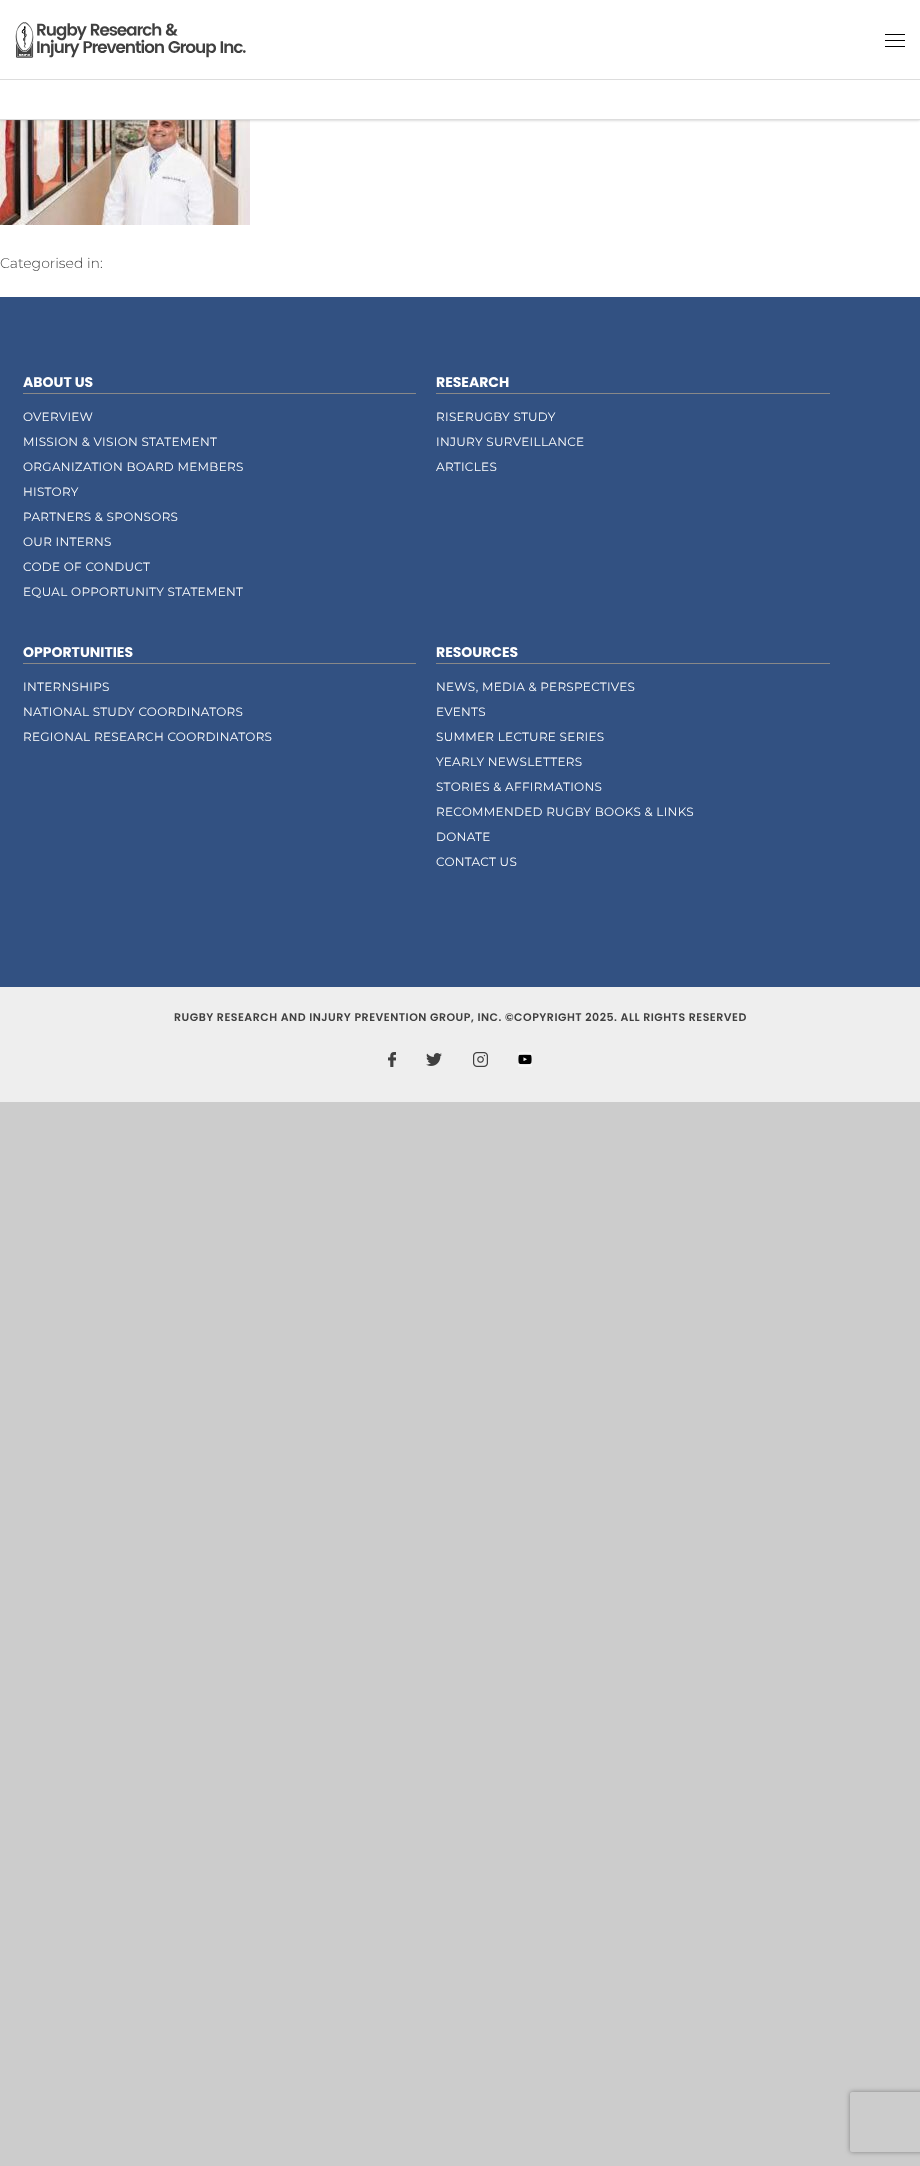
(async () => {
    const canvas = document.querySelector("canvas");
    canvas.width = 920;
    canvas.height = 2166;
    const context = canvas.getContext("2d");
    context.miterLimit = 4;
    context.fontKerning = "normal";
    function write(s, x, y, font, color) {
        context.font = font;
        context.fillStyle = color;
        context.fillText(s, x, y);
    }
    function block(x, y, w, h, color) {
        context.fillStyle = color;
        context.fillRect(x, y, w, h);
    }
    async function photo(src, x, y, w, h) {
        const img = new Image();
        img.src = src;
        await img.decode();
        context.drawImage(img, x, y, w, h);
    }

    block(0, 0, 920, 2166, "rgb(204, 204, 204)");
    block(0, 120, 920, 177, "rgb(255, 255, 255)");
    await photo("media/2.png", 0, 120, 250, 105);
    context.fillStyle = "rgba(125, 125, 125, 0.5)";
    context.filter = "blur(1.5px)";
    context.beginPath();
    context.rect(0, 0, 920, 120);
    context.fill();
    context.filter = "none";
    block(0, 0, 920, 119, "rgb(255, 255, 255)");
    block(0, 119, 920, 1, "rgb(221, 221, 221)");
    block(0, 79, 920, 1, "rgb(221, 221, 221)");
    await photo("media/1.png", 15, 22, 231, 36);
    block(885, 40, 20, 1, "rgb(0, 0, 0)");
    block(885, 34, 20, 1, "rgb(0, 0, 0)");
    block(885, 46, 20, 1, "rgb(0, 0, 0)");
    write("Categorised in:", 0, 268, "300 14px Montserrat", "rgb(64, 64, 64)");
    block(0, 297, 920, 690, "rgb(50, 81, 130)");
    write("ABOUT US", 23, 387, "bold 14px Poppins", "rgb(255, 255, 255)");
    block(23, 393, 393, 1, "rgb(136, 136, 136)");
    context.letterSpacing = "0.3px";
    write("OVERVIEW", 23, 421, "12px Montserrat", "rgb(255, 255, 255)");
    write("MISSION & VISION STATEMENT", 23, 446, "12px Montserrat", "rgb(255, 255, 255)");
    write("ORGANIZATION BOARD MEMBERS", 23, 471, "12px Montserrat", "rgb(255, 255, 255)");
    write("HISTORY", 23, 496, "12px Montserrat", "rgb(255, 255, 255)");
    write("PARTNERS & SPONSORS", 23, 521, "12px Montserrat", "rgb(255, 255, 255)");
    write("OUR INTERNS", 23, 546, "12px Montserrat", "rgb(255, 255, 255)");
    write("CODE OF CONDUCT", 23, 571, "12px Montserrat", "rgb(255, 255, 255)");
    write("EQUAL OPPORTUNITY STATEMENT", 23, 596, "12px Montserrat", "rgb(255, 255, 255)");
    context.letterSpacing = "0px";
    write("RESEARCH", 436, 387, "bold 14px Poppins", "rgb(255, 255, 255)");
    block(436, 393, 394, 1, "rgb(136, 136, 136)");
    context.letterSpacing = "0.3px";
    write("RISERUGBY STUDY", 436, 421, "12px Montserrat", "rgb(255, 255, 255)");
    write("INJURY SURVEILLANCE", 436, 446, "12px Montserrat", "rgb(255, 255, 255)");
    write("ARTICLES", 436, 471, "12px Montserrat", "rgb(255, 255, 255)");
    context.letterSpacing = "0px";
    write("OPPORTUNITIES", 23, 657, "bold 14px Poppins", "rgb(255, 255, 255)");
    block(23, 663, 393, 1, "rgb(136, 136, 136)");
    context.letterSpacing = "0.3px";
    write("INTERNSHIPS", 23, 691, "12px Montserrat", "rgb(255, 255, 255)");
    write("NATIONAL STUDY COORDINATORS", 23, 716, "12px Montserrat", "rgb(255, 255, 255)");
    write("REGIONAL RESEARCH COORDINATORS", 23, 741, "12px Montserrat", "rgb(255, 255, 255)");
    context.letterSpacing = "0px";
    write("RESOURCES", 436, 657, "bold 14px Poppins", "rgb(255, 255, 255)");
    block(436, 663, 394, 1, "rgb(136, 136, 136)");
    context.letterSpacing = "0.3px";
    write("NEWS, MEDIA & PERSPECTIVES", 436, 691, "12px Montserrat", "rgb(255, 255, 255)");
    write("EVENTS", 436, 716, "12px Montserrat", "rgb(255, 255, 255)");
    write("SUMMER LECTURE SERIES", 436, 741, "12px Montserrat", "rgb(255, 255, 255)");
    write("YEARLY NEWSLETTERS", 436, 766, "12px Montserrat", "rgb(255, 255, 255)");
    write("STORIES & AFFIRMATIONS", 436, 791, "12px Montserrat", "rgb(255, 255, 255)");
    write("RECOMMENDED RUGBY BOOKS & LINKS", 436, 816, "12px Montserrat", "rgb(255, 255, 255)");
    write("DONATE", 436, 841, "12px Montserrat", "rgb(255, 255, 255)");
    write("CONTACT US", 436, 866, "12px Montserrat", "rgb(255, 255, 255)");
    block(0, 987, 920, 115, "rgb(238, 238, 238)");
    context.letterSpacing = "0.5px";
    write("RUGBY RESEARCH AND INJURY PREVENTION GROUP, INC. ©COPYRIGHT 2025. ALL RIGHTS RESERVED", 174, 1021, "600 11px Poppins", "rgb(64, 64, 64)");
    await photo("media/3.png", 388, 1052, 8, 15);
    await photo("media/4.png", 426, 1053, 16, 13);
    await photo("media/5.png", 473, 1052, 15, 15);
    await photo("media/6.png", 518, 1052, 14, 15);
    context.save();
    context.beginPath();
    context.moveTo(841, 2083);
    context.lineTo(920, 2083);
    context.lineTo(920, 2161);
    context.lineTo(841, 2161);
    context.closePath();
    context.moveTo(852, 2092);
    context.lineTo(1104, 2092);
    context.bezierCurveTo(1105, 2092, 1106, 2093, 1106, 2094);
    context.lineTo(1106, 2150);
    context.bezierCurveTo(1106, 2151, 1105, 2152, 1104, 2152);
    context.lineTo(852, 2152);
    context.bezierCurveTo(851, 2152, 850, 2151, 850, 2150);
    context.lineTo(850, 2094);
    context.bezierCurveTo(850, 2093, 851, 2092, 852, 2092);
    context.closePath();
    context.clip("evenodd");
    context.fillStyle = "rgb(128, 128, 128)";
    context.filter = "blur(2.5px)";
    context.beginPath();
    context.roundRect(850, 2092, 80, 60, 2);
    context.fill();
    context.filter = "none";
    context.restore();
})();
